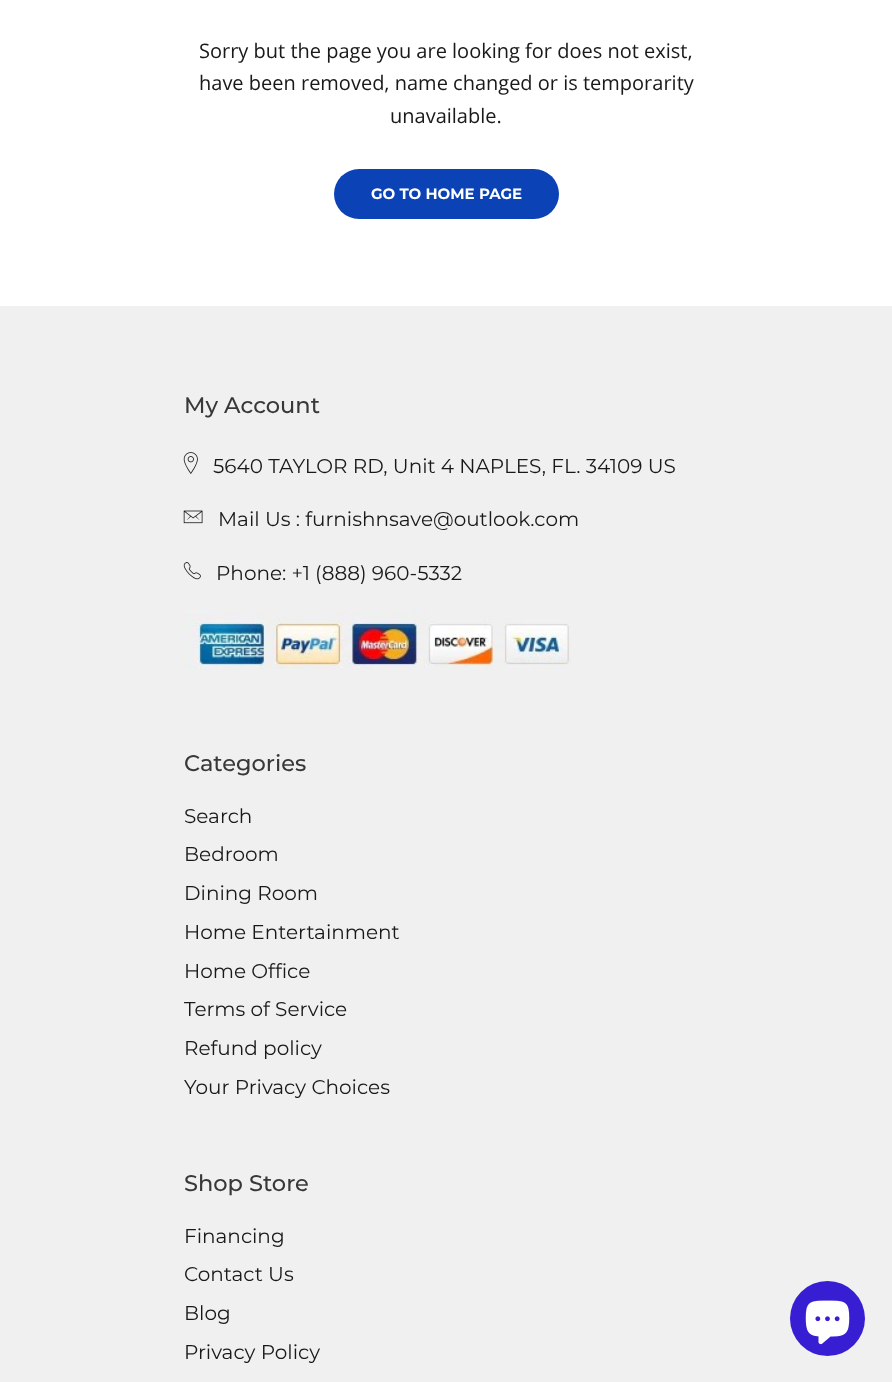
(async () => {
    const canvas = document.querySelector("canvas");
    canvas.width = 892;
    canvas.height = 1382;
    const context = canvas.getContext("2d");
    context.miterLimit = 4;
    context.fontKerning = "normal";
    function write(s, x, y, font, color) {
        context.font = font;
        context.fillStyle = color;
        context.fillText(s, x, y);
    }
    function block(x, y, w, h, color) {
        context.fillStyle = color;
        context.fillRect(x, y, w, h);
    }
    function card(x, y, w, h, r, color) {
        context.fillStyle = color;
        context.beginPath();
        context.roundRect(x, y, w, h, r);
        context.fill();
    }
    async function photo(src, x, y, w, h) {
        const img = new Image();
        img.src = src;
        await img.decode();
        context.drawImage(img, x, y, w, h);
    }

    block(0, 0, 892, 1382, "rgb(255, 255, 255)");
    write("Sorry but the page you are looking for does not exist,", 199, 58, "20px Open Sans", "rgb(25, 25, 25)");
    write("have been removed, name changed or is temporarity", 199, 90, "20px Open Sans", "rgb(25, 25, 25)");
    write("unavailable.", 390, 123, "20px Open Sans", "rgb(25, 25, 25)");
    card(334, 169, 225, 50, 25, "rgb(11, 66, 182)");
    write("GO TO HOME PAGE", 371, 199, "bold 15px Montserrat", "rgb(255, 255, 255)");
    block(0, 306, 892, 1076, "rgb(240, 240, 240)");
    write("My Account", 184, 413, "500 22.5px Montserrat", "rgb(56, 56, 56)");
    await photo("media/1.png", 183, 452, 15, 22);
    write("5640 TAYLOR RD, Unit 4 NAPLES, FL. 34109 US", 213, 473, "20px Montserrat", "rgb(25, 25, 25)");
    await photo("media/2.png", 183, 510, 20, 14);
    write("Mail Us : furnishnsave@outlook.com", 218, 526, "20px Montserrat", "rgb(25, 25, 25)");
    await photo("media/3.png", 183, 562, 18, 18);
    write("Phone: +1 (888) 960-5332", 216, 580, "20px Montserrat", "rgb(25, 25, 25)");
    await photo("media/4.png", 184, 609, 387, 60);
    write("Categories", 184, 771, "500 22.5px Montserrat", "rgb(56, 56, 56)");
    write("Search", 184, 823, "20px Montserrat", "rgb(25, 25, 25)");
    write("Bedroom", 184, 861, "20px Montserrat", "rgb(25, 25, 25)");
    write("Dining Room", 184, 900, "20px Montserrat", "rgb(25, 25, 25)");
    write("Home Entertainment", 184, 939, "20px Montserrat", "rgb(25, 25, 25)");
    write("Home Office", 184, 978, "20px Montserrat", "rgb(25, 25, 25)");
    write("Terms of Service", 184, 1016, "20px Montserrat", "rgb(25, 25, 25)");
    write("Refund policy", 184, 1055, "20px Montserrat", "rgb(25, 25, 25)");
    write("Your Privacy Choices", 184, 1094, "20px Montserrat", "rgb(25, 25, 25)");
    write("Shop Store", 184, 1191, "500 22.5px Montserrat", "rgb(56, 56, 56)");
    write("Financing", 184, 1243, "20px Montserrat", "rgb(25, 25, 25)");
    write("Contact Us", 184, 1281, "20px Montserrat", "rgb(25, 25, 25)");
    write("Blog", 184, 1320, "20px Montserrat", "rgb(25, 25, 25)");
    write("Privacy Policy", 184, 1359, "20px Montserrat", "rgb(25, 25, 25)");
    context.fillStyle = "rgb(55, 30, 210)";
    context.beginPath();
    context.arc(827.5, 1318.5, 37.5, 0, Math.PI * 2);
    context.fill();
    await photo("media/5.png", 805, 1300, 45, 45);
})();
